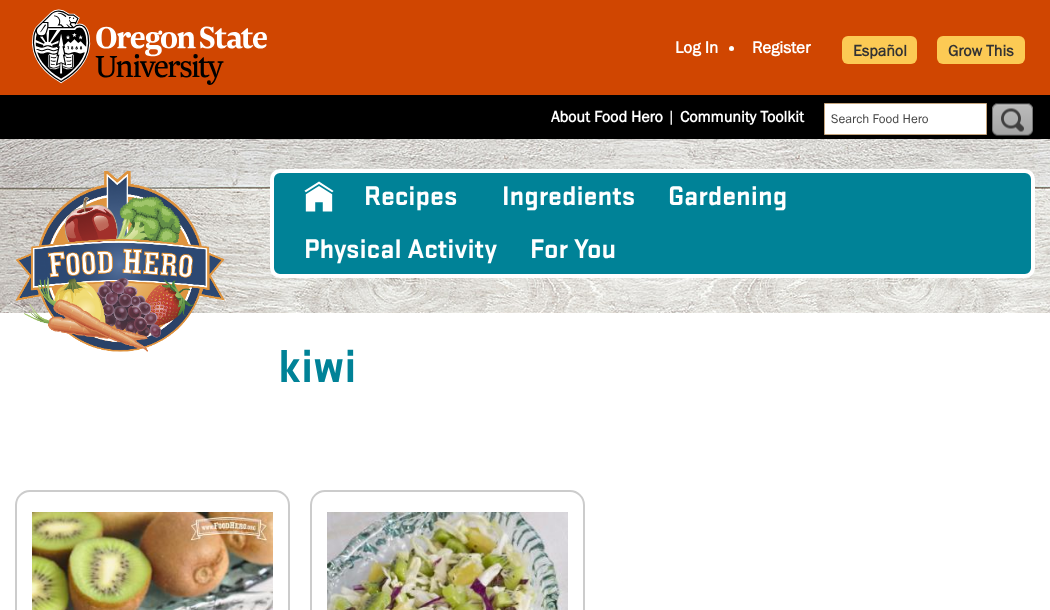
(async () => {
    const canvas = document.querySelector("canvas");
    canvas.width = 1050;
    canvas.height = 610;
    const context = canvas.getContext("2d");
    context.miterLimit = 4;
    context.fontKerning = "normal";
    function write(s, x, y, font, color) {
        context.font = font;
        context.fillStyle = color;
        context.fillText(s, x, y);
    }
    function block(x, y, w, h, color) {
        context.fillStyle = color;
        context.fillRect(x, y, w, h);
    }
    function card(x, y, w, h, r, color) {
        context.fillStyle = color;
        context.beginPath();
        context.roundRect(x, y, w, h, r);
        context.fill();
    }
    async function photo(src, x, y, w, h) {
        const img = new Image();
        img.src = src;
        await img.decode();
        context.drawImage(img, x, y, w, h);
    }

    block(0, 0, 1050, 610, "rgb(0, 0, 0)");
    block(0, 0, 1050, 95, "rgb(208, 70, 1)");
    await photo("media/1.png", 32, 9, 235, 76);
    write("Log In", 675, 53, "bold 17px Franklin Gothic", "rgb(255, 255, 255)");
    context.beginPath();
    context.arc(731.5, 48.5, 2.5, 0, Math.PI * 2);
    context.fill();
    write("Register", 752, 53, "bold 17px Franklin Gothic", "rgb(255, 255, 255)");
    card(842, 36, 75, 28, 6, "rgb(252, 202, 84)");
    write("Español", 853, 56, "bold 16px Franklin Gothic", "rgb(51, 51, 51)");
    card(937, 36, 88, 28, 6, "rgb(252, 202, 84)");
    write("Grow This", 948, 56, "bold 16px Franklin Gothic", "rgb(51, 51, 51)");
    write("About Food Hero", 551, 122, "bold 16px Franklin Gothic", "rgb(255, 255, 255)");
    write("|", 667, 122, "17px Franklin Gothic", "rgb(255, 255, 255)");
    write("Community Toolkit", 680, 122, "bold 16px Franklin Gothic", "rgb(255, 255, 255)");
    context.beginPath();
    context.rect(824.5, 103.5, 162, 31);
    context.fill();
    context.strokeStyle = "rgb(197, 164, 124)";
    context.stroke();
    write("Search Food Hero", 831, 123, "13px Franklin Gothic", "rgb(68, 68, 68)");
    await photo("media/2.png", 992, 103, 41, 33);
    await photo("media/3.png", 0, 139, 1050, 174);
    context.fillStyle = "rgb(0, 130, 151)";
    context.beginPath();
    context.roundRect(272, 171, 761, 105, 8);
    context.fill();
    context.strokeStyle = "rgb(255, 255, 255)";
    context.lineWidth = 4;
    context.stroke();
    await photo("media/4.png", 304, 181, 30, 31);
    write("Recipes", 364, 205, "bold 28px 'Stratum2'", "rgb(255, 255, 255)");
    write("Ingredients", 502, 205, "bold 28px 'Stratum2'", "rgb(255, 255, 255)");
    write("Gardening", 668, 205, "bold 28px 'Stratum2'", "rgb(255, 255, 255)");
    write("Physical Activity", 304, 258, "bold 28px 'Stratum2'", "rgb(255, 255, 255)");
    write("For You", 530, 258, "bold 28px 'Stratum2'", "rgb(255, 255, 255)");
    block(0, 313, 1050, 297, "rgb(255, 255, 255)");
    await photo("media/5.png", 15, 171, 210, 181);
    write("kiwi", 278, 382, "bold 48px 'Stratum2'", "rgb(0, 130, 151)");
    context.beginPath();
    context.roundRect(16, 491, 273, 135, 14);
    context.strokeStyle = "rgb(204, 204, 204)";
    context.lineWidth = 2;
    context.stroke();
    await photo("media/6.png", 32, 512, 241, 98);
    context.beginPath();
    context.roundRect(311, 491, 273, 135, 14);
    context.stroke();
    await photo("media/7.png", 327, 512, 241, 98);
})();
